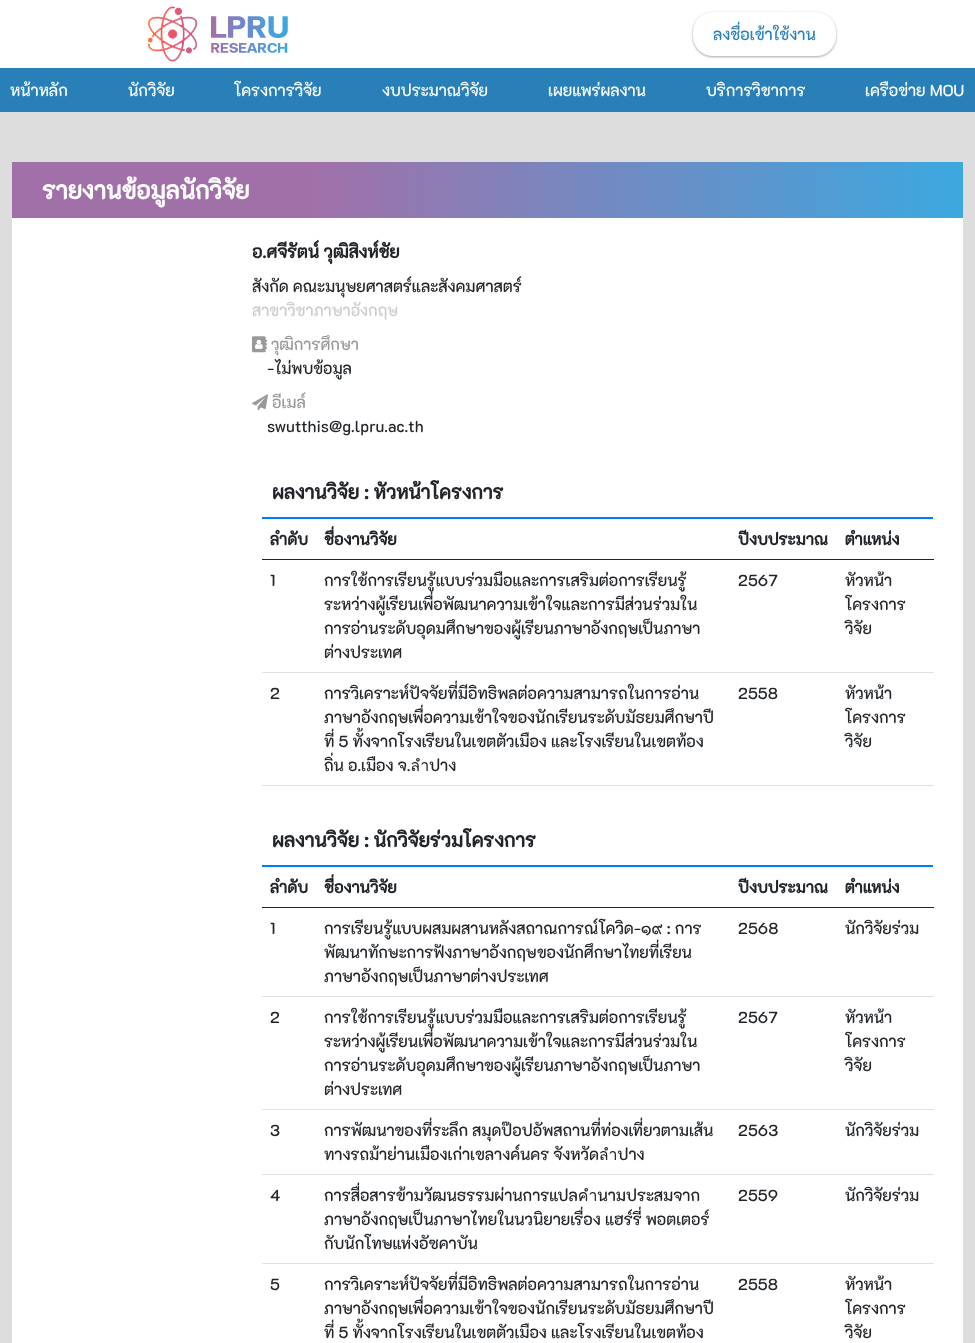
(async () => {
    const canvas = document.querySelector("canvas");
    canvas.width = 975;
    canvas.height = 1343;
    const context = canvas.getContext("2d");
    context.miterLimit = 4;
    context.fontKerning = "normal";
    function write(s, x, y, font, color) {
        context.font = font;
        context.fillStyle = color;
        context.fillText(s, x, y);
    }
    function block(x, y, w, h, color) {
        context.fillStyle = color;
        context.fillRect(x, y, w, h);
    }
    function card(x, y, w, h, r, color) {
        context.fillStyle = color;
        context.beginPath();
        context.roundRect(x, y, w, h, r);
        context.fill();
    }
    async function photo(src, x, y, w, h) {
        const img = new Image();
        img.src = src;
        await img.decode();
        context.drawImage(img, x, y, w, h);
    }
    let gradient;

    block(0, 0, 975, 1343, "rgb(221, 221, 221)");
    block(0, 0, 975, 68, "rgb(255, 255, 255)");
    await photo("media/1.png", 147, 6, 141, 56);
    context.fillStyle = "rgba(0, 0, 0, 0.24)";
    context.filter = "blur(1px)";
    context.beginPath();
    context.roundRect(693, 13, 143, 44, 20);
    context.fill();
    context.filter = "none";
    context.fillStyle = "rgba(0, 0, 0, 0.12)";
    context.filter = "blur(1.5px)";
    context.beginPath();
    context.roundRect(693, 13, 143, 44, 20);
    context.fill();
    context.filter = "none";
    card(693, 12, 143, 44, 20, "rgb(255, 255, 255)");
    write("ลงชื่อเข้าใช้งาน", 713, 40, "500 16px 'K2D'", "rgb(41, 128, 185)");
    block(0, 68, 975, 44, "rgb(41, 128, 185)");
    write("หน้าหลัก", 10, 96, "500 16px 'K2D'", "rgb(255, 255, 255)");
    write("นักวิจัย", 128, 96, "500 16px 'K2D'", "rgb(255, 255, 255)");
    write("โครงการวิจัย", 234, 96, "500 16px 'K2D'", "rgb(255, 255, 255)");
    write("งบประมาณวิจัย", 382, 96, "500 16px 'K2D'", "rgb(255, 255, 255)");
    write("เผยแพร่ผลงาน", 548, 96, "500 16px 'K2D'", "rgb(255, 255, 255)");
    write("บริการวิชาการ", 706, 96, "500 16px 'K2D'", "rgb(255, 255, 255)");
    write("เครือข่าย MOU", 865, 96, "500 16px 'K2D'", "rgb(255, 255, 255)");
    block(12, 218, 951, 1125, "rgb(255, 255, 255)");
    gradient = context.createLinearGradient(12, 190, 963, 190);
    gradient.addColorStop(0, "rgb(162, 112, 169)");
    gradient.addColorStop(0.31, "rgb(162, 112, 169)");
    gradient.addColorStop(1, "rgb(59, 168, 223)");
    context.fillStyle = gradient;
    context.fillRect(12, 162, 951, 56);
    write("รายงานข้อมูลนักวิจัย", 42, 199, "bold 24px 'K2D'", "rgb(255, 255, 255)");
    write("อ.ศจีรัตน์ วุฒิสิงห์ชัย", 252, 258, "bold 17.5px 'K2D'", "rgb(33, 37, 41)");
    write("สังกัด คณะมนุษยศาสตร์และสังคมศาสตร์", 252, 292, "500 16px 'K2D'", "rgb(33, 37, 41)");
    write("สาขาวิชาภาษาอังกฤษ", 252, 316, "500 16px 'K2D'", "rgb(204, 204, 204)");
    await photo("media/2.png", 252, 336, 15, 17);
    write("วุฒิการศึกษา", 271, 350, "500 16px 'K2D'", "rgb(153, 153, 153)");
    write("-ไม่พบข้อมูล", 267, 374, "500 16px 'K2D'", "rgb(33, 37, 41)");
    await photo("media/3.png", 252, 394, 16, 17);
    write("อีเมล์", 272, 408, "500 16px 'K2D'", "rgb(153, 153, 153)");
    write("swutthis@g.lpru.ac.th", 267, 432, "500 16px 'K2D'", "rgb(33, 37, 41)");
    block(262, 517, 671, 2, "rgb(0, 123, 255)");
    write("ผลงานวิจัย : หัวหน้าโครงการ", 272, 499, "bold 19.25px 'K2D'", "rgb(33, 37, 41)");
    write("ลำดับ", 270, 545, "bold 16px 'K2D'", "rgb(33, 37, 41)");
    write("ชื่องานวิจัย", 324, 545, "bold 16px 'K2D'", "rgb(33, 37, 41)");
    write("ปีงบประมาณ", 738, 545, "bold 16px 'K2D'", "rgb(33, 37, 41)");
    block(262, 559, 672, 1, "rgb(33, 37, 41)");
    write("ตำแหน่ง", 845, 545, "bold 16px 'K2D'", "rgb(33, 37, 41)");
    write("1", 270, 586, "500 16px 'K2D'", "rgb(33, 37, 41)");
    write("การใช้การเรียนรู้แบบร่วมมือและการเสริมต่อการเรียนรู้", 324, 586, "500 16px 'K2D'", "rgb(33, 37, 41)");
    write("ระหว่างผู้เรียนเพื่อพัฒนาความเข้าใจและการมีส่วนร่วมใน", 324, 610, "500 16px 'K2D'", "rgb(33, 37, 41)");
    write("การอ่านระดับอุดมศึกษาของผู้เรียนภาษาอังกฤษเป็นภาษา", 324, 634, "500 16px 'K2D'", "rgb(33, 37, 41)");
    write("ต่างประเทศ", 324, 658, "500 16px 'K2D'", "rgb(33, 37, 41)");
    write("2567", 738, 586, "500 16px 'K2D'", "rgb(33, 37, 41)");
    block(262, 672, 672, 1, "rgb(222, 226, 230)");
    write("หัวหน้า", 845, 586, "500 16px 'K2D'", "rgb(33, 37, 41)");
    write("โครงการ", 845, 610, "500 16px 'K2D'", "rgb(33, 37, 41)");
    write("วิจัย", 845, 634, "500 16px 'K2D'", "rgb(33, 37, 41)");
    write("2", 270, 699, "500 16px 'K2D'", "rgb(33, 37, 41)");
    write("การวิเคราะห์ปัจจัยที่มีอิทธิพลต่อความสามารถในการอ่าน", 324, 699, "500 16px 'K2D'", "rgb(33, 37, 41)");
    write("ภาษาอังกฤษเพื่อความเข้าใจของนักเรียนระดับมัธยมศึกษาปี", 324, 723, "500 16px 'K2D'", "rgb(33, 37, 41)");
    write("ที่ 5 ทั้งจากโรงเรียนในเขตตัวเมือง และโรงเรียนในเขตท้อง", 324, 747, "500 16px 'K2D'", "rgb(33, 37, 41)");
    write("ถิ่น อ.เมือง จ.ลำปาง", 324, 771, "500 16px 'K2D'", "rgb(33, 37, 41)");
    write("2558", 738, 699, "500 16px 'K2D'", "rgb(33, 37, 41)");
    block(262, 785, 672, 1, "rgb(222, 226, 230)");
    write("หัวหน้า", 845, 699, "500 16px 'K2D'", "rgb(33, 37, 41)");
    write("โครงการ", 845, 723, "500 16px 'K2D'", "rgb(33, 37, 41)");
    write("วิจัย", 845, 747, "500 16px 'K2D'", "rgb(33, 37, 41)");
    block(262, 865, 671, 2, "rgb(0, 123, 255)");
    write("ผลงานวิจัย : นักวิจัยร่วมโครงการ", 272, 847, "bold 19.25px 'K2D'", "rgb(33, 37, 41)");
    write("ลำดับ", 270, 893, "bold 16px 'K2D'", "rgb(33, 37, 41)");
    write("ชื่องานวิจัย", 324, 893, "bold 16px 'K2D'", "rgb(33, 37, 41)");
    write("ปีงบประมาณ", 738, 893, "bold 16px 'K2D'", "rgb(33, 37, 41)");
    block(262, 907, 672, 1, "rgb(33, 37, 41)");
    write("ตำแหน่ง", 845, 893, "bold 16px 'K2D'", "rgb(33, 37, 41)");
    write("1", 270, 934, "500 16px 'K2D'", "rgb(33, 37, 41)");
    write("การเรียนรู้แบบผสมผสานหลังสถาณการณ์โควิด-๑๙ : การ", 324, 934, "500 16px 'K2D'", "rgb(33, 37, 41)");
    write("พัฒนาทักษะการฟังภาษาอังกฤษของนักศึกษาไทยที่เรียน", 324, 958, "500 16px 'K2D'", "rgb(33, 37, 41)");
    write("ภาษาอังกฤษเป็นภาษาต่างประเทศ", 324, 982, "500 16px 'K2D'", "rgb(33, 37, 41)");
    write("2568", 738, 934, "500 16px 'K2D'", "rgb(33, 37, 41)");
    block(262, 996, 672, 1, "rgb(222, 226, 230)");
    write("นักวิจัยร่วม", 845, 934, "500 16px 'K2D'", "rgb(33, 37, 41)");
    write("2", 270, 1023, "500 16px 'K2D'", "rgb(33, 37, 41)");
    write("การใช้การเรียนรู้แบบร่วมมือและการเสริมต่อการเรียนรู้", 324, 1023, "500 16px 'K2D'", "rgb(33, 37, 41)");
    write("ระหว่างผู้เรียนเพื่อพัฒนาความเข้าใจและการมีส่วนร่วมใน", 324, 1047, "500 16px 'K2D'", "rgb(33, 37, 41)");
    write("การอ่านระดับอุดมศึกษาของผู้เรียนภาษาอังกฤษเป็นภาษา", 324, 1071, "500 16px 'K2D'", "rgb(33, 37, 41)");
    write("ต่างประเทศ", 324, 1095, "500 16px 'K2D'", "rgb(33, 37, 41)");
    write("2567", 738, 1023, "500 16px 'K2D'", "rgb(33, 37, 41)");
    block(262, 1109, 672, 1, "rgb(222, 226, 230)");
    write("หัวหน้า", 845, 1023, "500 16px 'K2D'", "rgb(33, 37, 41)");
    write("โครงการ", 845, 1047, "500 16px 'K2D'", "rgb(33, 37, 41)");
    write("วิจัย", 845, 1071, "500 16px 'K2D'", "rgb(33, 37, 41)");
    write("3", 270, 1136, "500 16px 'K2D'", "rgb(33, 37, 41)");
    write("การพัฒนาของที่ระลึก สมุดป๊อปอัพสถานที่ท่องเที่ยวตามเส้น", 324, 1136, "500 16px 'K2D'", "rgb(33, 37, 41)");
    write("ทางรถม้าย่านเมืองเก่าเขลางค์นคร จังหวัดลำปาง", 324, 1160, "500 16px 'K2D'", "rgb(33, 37, 41)");
    write("2563", 738, 1136, "500 16px 'K2D'", "rgb(33, 37, 41)");
    block(262, 1174, 672, 1, "rgb(222, 226, 230)");
    write("นักวิจัยร่วม", 845, 1136, "500 16px 'K2D'", "rgb(33, 37, 41)");
    write("4", 270, 1201, "500 16px 'K2D'", "rgb(33, 37, 41)");
    write("การสื่อสารข้ามวัฒนธรรมผ่านการแปลคำนามประสมจาก", 324, 1201, "500 16px 'K2D'", "rgb(33, 37, 41)");
    write("ภาษาอังกฤษเป็นภาษาไทยในนวนิยายเรื่อง แฮร์รี่ พอตเตอร์", 324, 1225, "500 16px 'K2D'", "rgb(33, 37, 41)");
    write("กับนักโทษแห่งอัซคาบัน", 324, 1249, "500 16px 'K2D'", "rgb(33, 37, 41)");
    write("2559", 738, 1201, "500 16px 'K2D'", "rgb(33, 37, 41)");
    block(262, 1263, 672, 1, "rgb(222, 226, 230)");
    write("นักวิจัยร่วม", 845, 1201, "500 16px 'K2D'", "rgb(33, 37, 41)");
    write("5", 270, 1290, "500 16px 'K2D'", "rgb(33, 37, 41)");
    write("การวิเคราะห์ปัจจัยที่มีอิทธิพลต่อความสามารถในการอ่าน", 324, 1290, "500 16px 'K2D'", "rgb(33, 37, 41)");
    write("ภาษาอังกฤษเพื่อความเข้าใจของนักเรียนระดับมัธยมศึกษาปี", 324, 1314, "500 16px 'K2D'", "rgb(33, 37, 41)");
    write("ที่ 5 ทั้งจากโรงเรียนในเขตตัวเมือง และโรงเรียนในเขตท้อง", 324, 1338, "500 16px 'K2D'", "rgb(33, 37, 41)");
    write("2558", 738, 1290, "500 16px 'K2D'", "rgb(33, 37, 41)");
    write("หัวหน้า", 845, 1290, "500 16px 'K2D'", "rgb(33, 37, 41)");
    write("โครงการ", 845, 1314, "500 16px 'K2D'", "rgb(33, 37, 41)");
    write("วิจัย", 845, 1338, "500 16px 'K2D'", "rgb(33, 37, 41)");
})();
